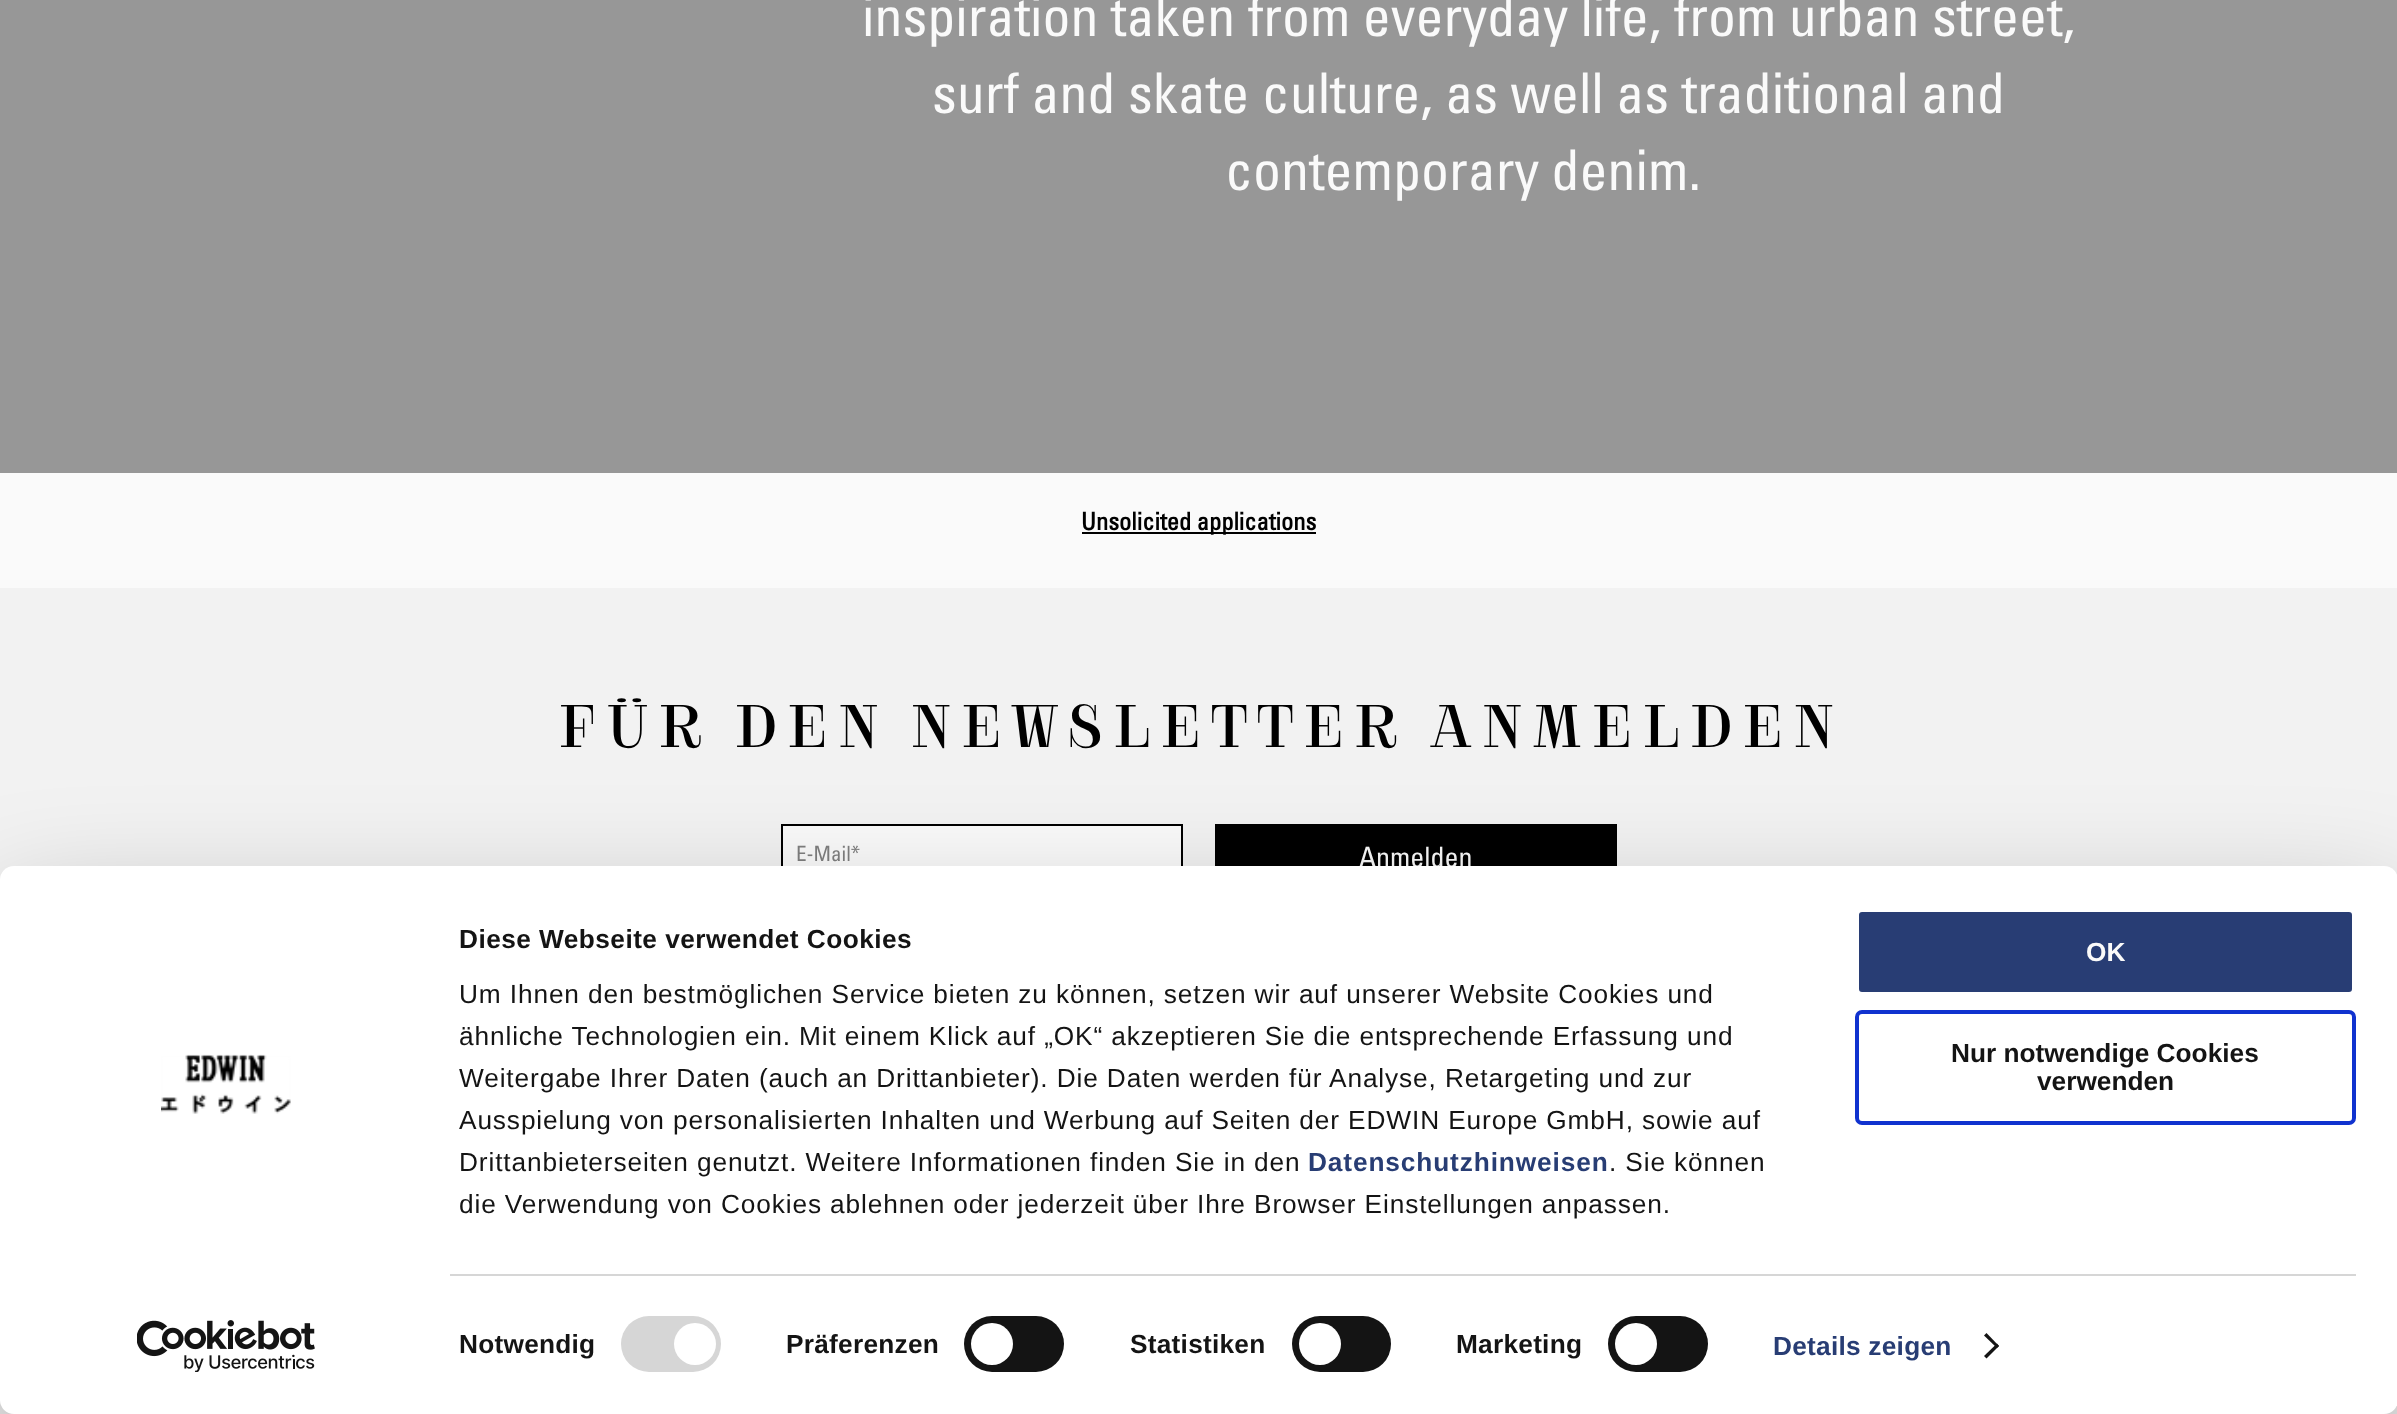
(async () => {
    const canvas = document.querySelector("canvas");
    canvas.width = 2397;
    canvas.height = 1414;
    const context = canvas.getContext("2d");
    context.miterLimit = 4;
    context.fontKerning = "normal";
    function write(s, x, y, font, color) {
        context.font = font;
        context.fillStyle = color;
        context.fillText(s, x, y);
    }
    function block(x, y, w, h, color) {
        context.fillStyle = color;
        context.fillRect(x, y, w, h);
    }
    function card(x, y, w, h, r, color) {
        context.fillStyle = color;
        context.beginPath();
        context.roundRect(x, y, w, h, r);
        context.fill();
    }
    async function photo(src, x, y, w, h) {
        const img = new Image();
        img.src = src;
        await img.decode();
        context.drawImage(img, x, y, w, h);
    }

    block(0, 0, 2397, 1414, "rgb(250, 250, 250)");
    block(0, 0, 2397, 473, "rgb(151, 151, 151)");
    write("inspiration taken from everyday life, from urban street,", 862, 36, "56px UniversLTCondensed", "rgb(250, 250, 250)");
    write("surf and skate culture, as well as traditional and", 932, 113, "56px UniversLTCondensed", "rgb(250, 250, 250)");
    write("contemporary denim.", 1225, 190, "56px UniversLTCondensed", "rgb(250, 250, 250)");
    block(1082, 532, 234, 2, "rgb(0, 0, 0)");
    write("Unsolicited applications", 1081, 530, "bold 24.5px UniversLTCondensed", "rgb(0, 0, 0)");
    block(0, 588, 2397, 826, "rgb(242, 242, 242)");
    context.letterSpacing = "5.25px";
    write("FÜR DEN NEWSLETTER ANMELDEN", 556, 747, "56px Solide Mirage", "rgb(0, 0, 0)");
    block(783, 826, 398, 40, "rgb(250, 250, 250)");
    context.strokeStyle = "rgb(0, 0, 0)";
    context.lineWidth = 2;
    context.strokeRect(782, 825, 400, 63);
    context.letterSpacing = "0px";
    write("E-Mail*", 796, 861, "21px UniversLTCondensed", "rgb(127, 127, 127)");
    block(1215, 824, 402, 42, "rgb(0, 0, 0)");
    write("Anmelden", 1359, 867, "28px UniversLTCondensed", "rgb(250, 250, 250)");
    context.fillStyle = "rgba(0, 0, 0, 0.3)";
    context.filter = "blur(61px)";
    context.beginPath();
    context.roundRect(0, 919, 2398, 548, 14);
    context.fill();
    context.filter = "none";
    card(0, 866, 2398, 548, 14, "rgb(255, 255, 255)");
    context.letterSpacing = "0.45px";
    write("Diese Webseite verwendet Cookies", 459, 948, "bold 26.25px Liberation Sans", "rgb(20, 20, 20)");
    context.letterSpacing = "0.88px";
    write("Um Ihnen den bestmöglichen Service bieten zu können, setzen wir auf unserer Website Cookies und", 459, 1003, "26.25px Liberation Sans", "rgb(20, 20, 20)");
    write("ähnliche Technologien ein. Mit einem Klick auf „OK“ akzeptieren Sie die entsprechende Erfassung und", 459, 1045, "26.25px Liberation Sans", "rgb(20, 20, 20)");
    write("Weitergabe Ihrer Daten (auch an Drittanbieter). Die Daten werden für Analyse, Retargeting und zur", 459, 1087, "26.25px Liberation Sans", "rgb(20, 20, 20)");
    write("Ausspielung von personalisierten Inhalten und Werbung auf Seiten der EDWIN Europe GmbH, sowie auf", 459, 1129, "26.25px Liberation Sans", "rgb(20, 20, 20)");
    write("Drittanbieterseiten genutzt. Weitere Informationen finden Sie in den", 459, 1171, "26.25px Liberation Sans", "rgb(20, 20, 20)");
    write("Datenschutzhinweisen", 1308, 1171, "bold 26.25px Liberation Sans", "rgb(40, 61, 116)");
    write(". Sie können", 1609, 1171, "26.25px Liberation Sans", "rgb(20, 20, 20)");
    write("die Verwendung von Cookies ablehnen oder jederzeit über Ihre Browser Einstellungen anpassen.", 459, 1213, "26.25px Liberation Sans", "rgb(20, 20, 20)");
    block(450, 1274, 1906, 2, "rgb(214, 214, 214)");
    context.letterSpacing = "0.25px";
    write("Notwendig", 459, 1353, "bold 26.25px Liberation Sans", "rgb(20, 20, 20)");
    card(621, 1316, 100, 56, 28, "rgb(214, 214, 214)");
    context.fillStyle = "rgb(255, 255, 255)";
    context.beginPath();
    context.arc(695, 1344, 21, 0, Math.PI * 2);
    context.fill();
    write("Präferenzen", 786, 1353, "bold 26.25px Liberation Sans", "rgb(20, 20, 20)");
    card(964, 1316, 100, 56, 28, "rgb(20, 20, 20)");
    context.fillStyle = "rgb(255, 255, 255)";
    context.beginPath();
    context.arc(992, 1344, 21, 0, Math.PI * 2);
    context.fill();
    write("Statistiken", 1130, 1353, "bold 26.25px Liberation Sans", "rgb(20, 20, 20)");
    card(1292, 1316, 99, 56, 28, "rgb(20, 20, 20)");
    context.fillStyle = "rgb(255, 255, 255)";
    context.beginPath();
    context.arc(1320, 1344, 21, 0, Math.PI * 2);
    context.fill();
    write("Marketing", 1456, 1353, "bold 26.25px Liberation Sans", "rgb(20, 20, 20)");
    card(1608, 1316, 100, 56, 28, "rgb(20, 20, 20)");
    context.fillStyle = "rgb(255, 255, 255)";
    context.beginPath();
    context.arc(1636, 1344, 21, 0, Math.PI * 2);
    context.fill();
    write("Details zeigen", 1773, 1355, "bold 26.25px Liberation Sans", "rgb(40, 61, 116)");
    context.fillStyle = "rgb(20, 20, 20)";
    context.beginPath();
    context.moveTo(1986.5, 1333);
    context.lineTo(1999, 1346);
    context.lineTo(1997, 1348);
    context.lineTo(1984, 1335.5);
    context.closePath();
    context.fill();
    context.beginPath();
    context.moveTo(1997, 1343.5);
    context.lineTo(1999, 1346);
    context.lineTo(1986.5, 1358.5);
    context.lineTo(1984, 1356);
    context.closePath();
    context.fill();
    context.fillStyle = "rgb(40, 61, 116)";
    context.beginPath();
    context.roundRect(1857, 910, 497, 84, 5);
    context.fill();
    context.strokeStyle = "rgb(255, 255, 255)";
    context.lineWidth = 4;
    context.stroke();
    context.letterSpacing = "0px";
    write("OK", 2086, 961, "bold 26.25px Liberation Sans", "rgb(250, 250, 250)");
    context.beginPath();
    context.roundRect(1857, 1012, 497, 111, 5);
    context.strokeStyle = "rgb(16, 50, 207)";
    context.stroke();
    write("Nur notwendige Cookies", 1951, 1062, "bold 26.25px Liberation Sans", "rgb(20, 20, 20)");
    write("verwenden", 2037, 1090, "bold 26.25px Liberation Sans", "rgb(20, 20, 20)");
    await photo("media/1.png", 161, 1054, 130, 60);
    await photo("media/2.png", 137, 1320, 178, 52);
})();
